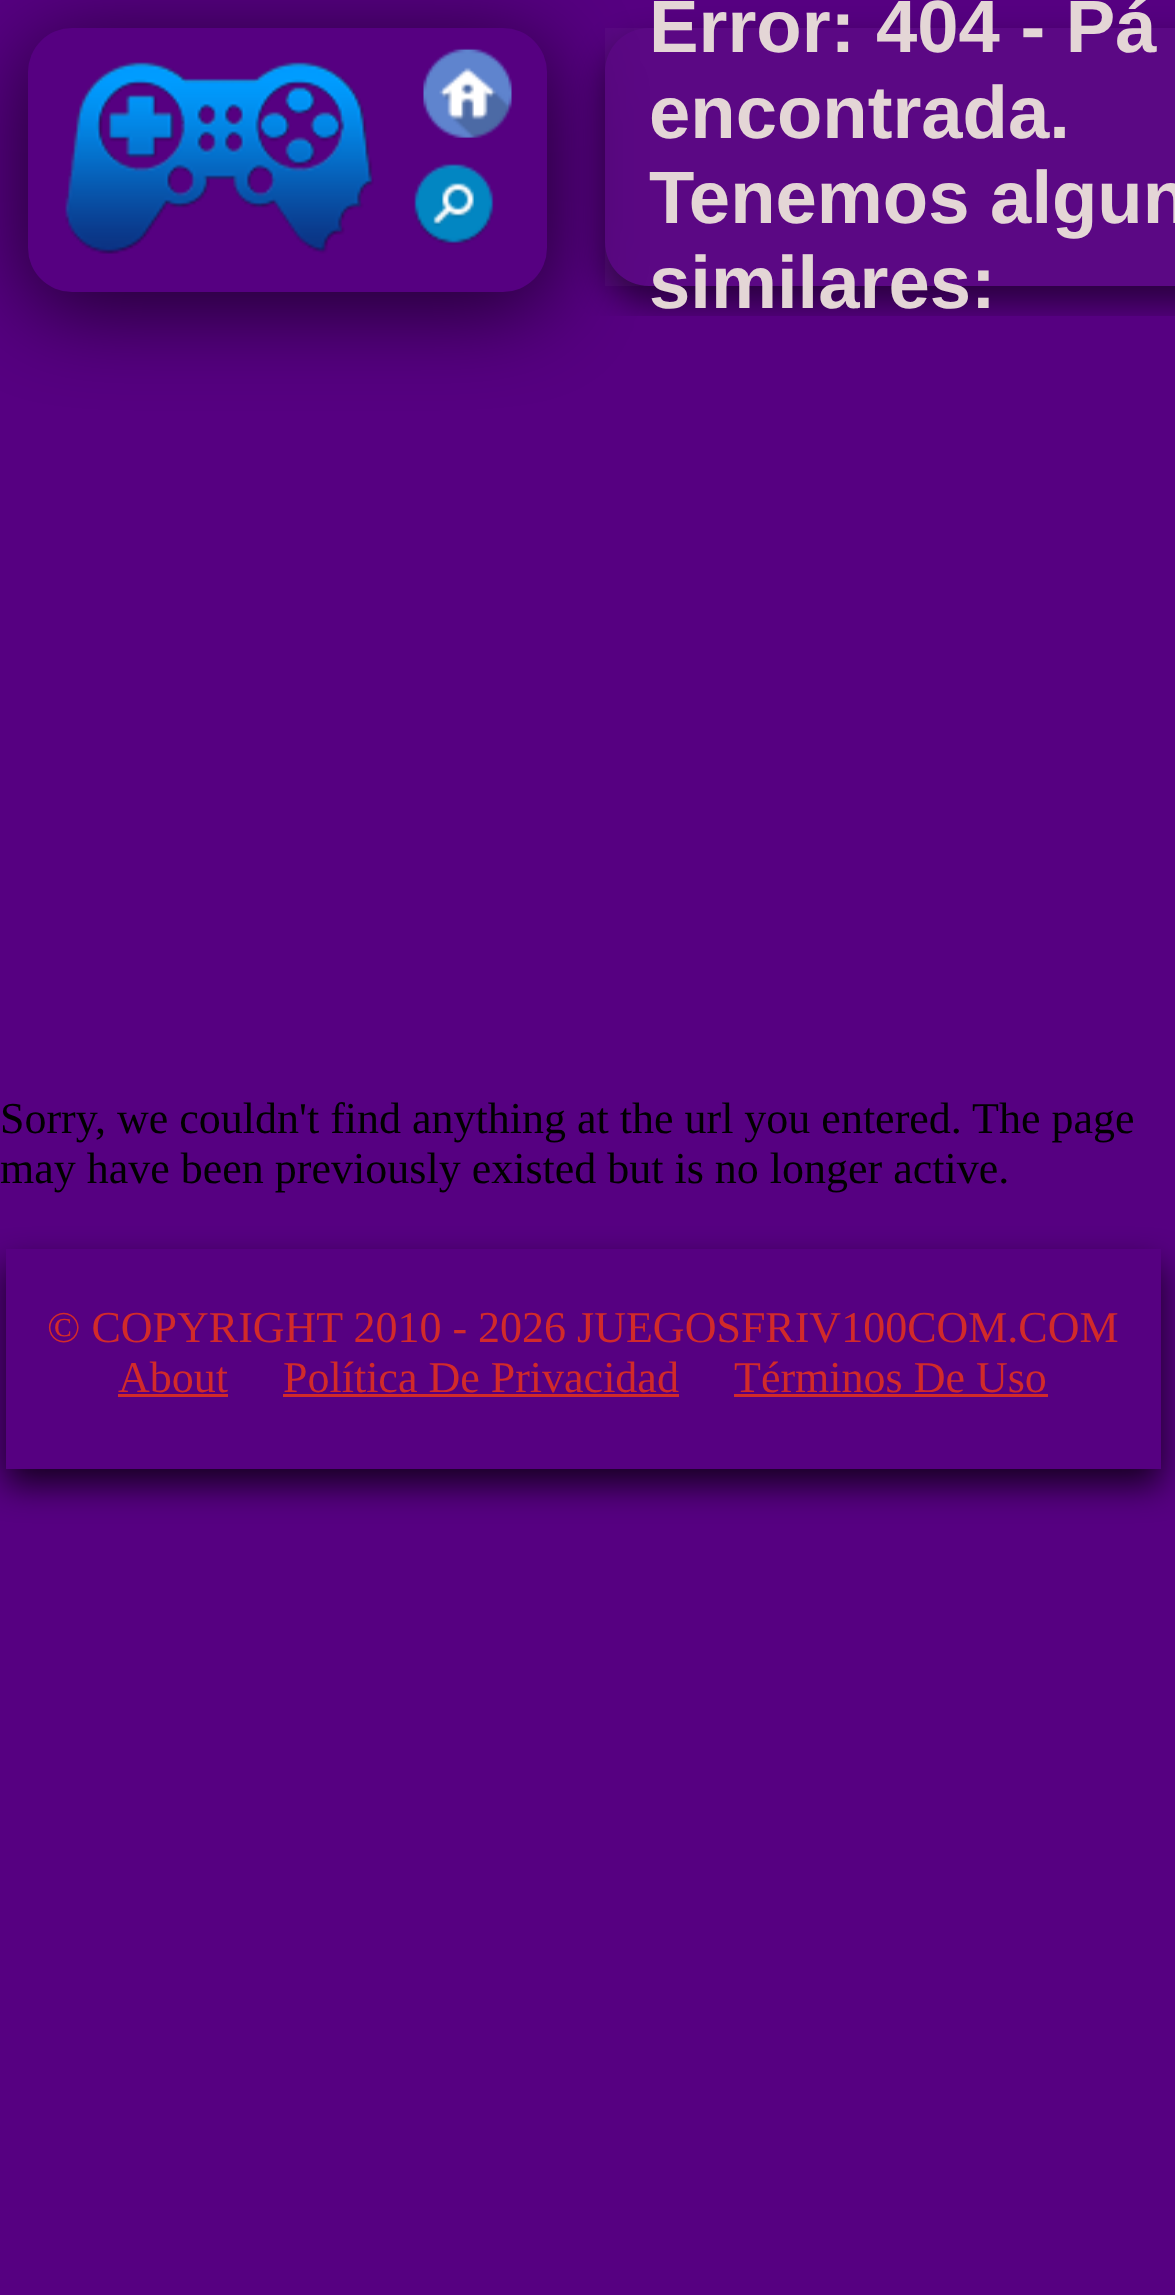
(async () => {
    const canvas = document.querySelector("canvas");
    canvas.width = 1175;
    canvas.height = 2295;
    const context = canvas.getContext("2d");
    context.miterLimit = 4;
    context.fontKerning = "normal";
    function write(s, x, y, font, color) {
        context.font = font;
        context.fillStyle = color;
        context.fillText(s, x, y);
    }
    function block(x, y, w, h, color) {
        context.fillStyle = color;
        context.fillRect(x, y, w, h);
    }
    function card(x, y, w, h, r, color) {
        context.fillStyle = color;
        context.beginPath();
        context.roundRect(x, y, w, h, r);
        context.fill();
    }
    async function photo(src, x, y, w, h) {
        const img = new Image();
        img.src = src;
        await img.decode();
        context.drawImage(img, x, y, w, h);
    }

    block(0, 0, 1175, 2295, "rgb(86, 0, 129)");
    context.save();
    context.beginPath();
    context.rect(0, 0, 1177, 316);
    context.clip();
    context.beginPath();
    context.moveTo(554, 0);
    context.lineTo(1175, 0);
    context.lineTo(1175, 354);
    context.lineTo(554, 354);
    context.closePath();
    context.moveTo(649, 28);
    context.lineTo(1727, 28);
    context.bezierCurveTo(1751.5, 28, 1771, 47.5, 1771, 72);
    context.lineTo(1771, 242);
    context.bezierCurveTo(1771, 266.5, 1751.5, 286, 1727, 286);
    context.lineTo(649, 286);
    context.bezierCurveTo(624.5, 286, 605, 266.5, 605, 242);
    context.lineTo(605, 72);
    context.bezierCurveTo(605, 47.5, 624.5, 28, 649, 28);
    context.closePath();
    context.clip("evenodd");
    context.fillStyle = "rgba(0, 0, 0, 0.52)";
    context.filter = "blur(16.5px)";
    context.beginPath();
    context.roundRect(605, 44, 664, 259, 44);
    context.fill();
    context.filter = "none";
    context.restore();
    block(605, 28, 570, 258, "rgba(255, 255, 255, 0.03)");
    context.fillStyle = "rgba(0, 0, 0, 0.65)";
    context.filter = "blur(44px)";
    context.beginPath();
    context.roundRect(28, 44, 519, 264, 44);
    context.fill();
    context.filter = "none";
    card(28, 28, 519, 264, 44, "rgb(86, 0, 129)");
    await photo("media/1.png", 65, 62, 309, 192);
    await photo("media/2.png", 423, 48, 89, 90);
    await photo("media/3.png", 414, 163, 80, 82);
    write("Error: 404 - Pá", 649, 52, "bold 74.25px Liberation Sans", "rgb(228, 214, 214)");
    write("encontrada.", 649, 138, "bold 74.25px Liberation Sans", "rgb(228, 214, 214)");
    write("Tenemos algun", 649, 223, "bold 74.25px Liberation Sans", "rgb(228, 214, 214)");
    write("similares:", 649, 308, "bold 74.25px Liberation Sans", "rgb(228, 214, 214)");
    write("Sorry, we couldn't find anything at the url you entered. The page", 0, 1133, "44px Liberation Serif", "rgb(0, 0, 0)");
    write("may have been previously existed but is no longer active.", 0, 1183, "44px Liberation Serif", "rgb(0, 0, 0)");
    context.fillStyle = "rgba(0, 0, 0, 0.73)";
    context.filter = "blur(16.5px)";
    context.beginPath();
    context.rect(6, 1265, 1155, 220);
    context.fill();
    context.filter = "none";
    block(6, 1249, 1155, 220, "rgb(86, 0, 129)");
    write("© COPYRIGHT 2010 - 2026 JUEGOSFRIV100COM.COM", 47, 1342, "44px Liberation Serif", "rgb(210, 42, 42)");
    write("About", 118, 1392, "44px Liberation Serif", "rgb(210, 42, 42)");
    block(118, 1394, 110, 3, "rgb(210, 42, 42)");
    write("Política De Privacidad", 283, 1392, "44px Liberation Serif", "rgb(210, 42, 42)");
    block(283, 1394, 396, 3, "rgb(210, 42, 42)");
    write("Términos De Uso", 734, 1392, "44px Liberation Serif", "rgb(210, 42, 42)");
    block(734, 1394, 314, 3, "rgb(210, 42, 42)");
})();
